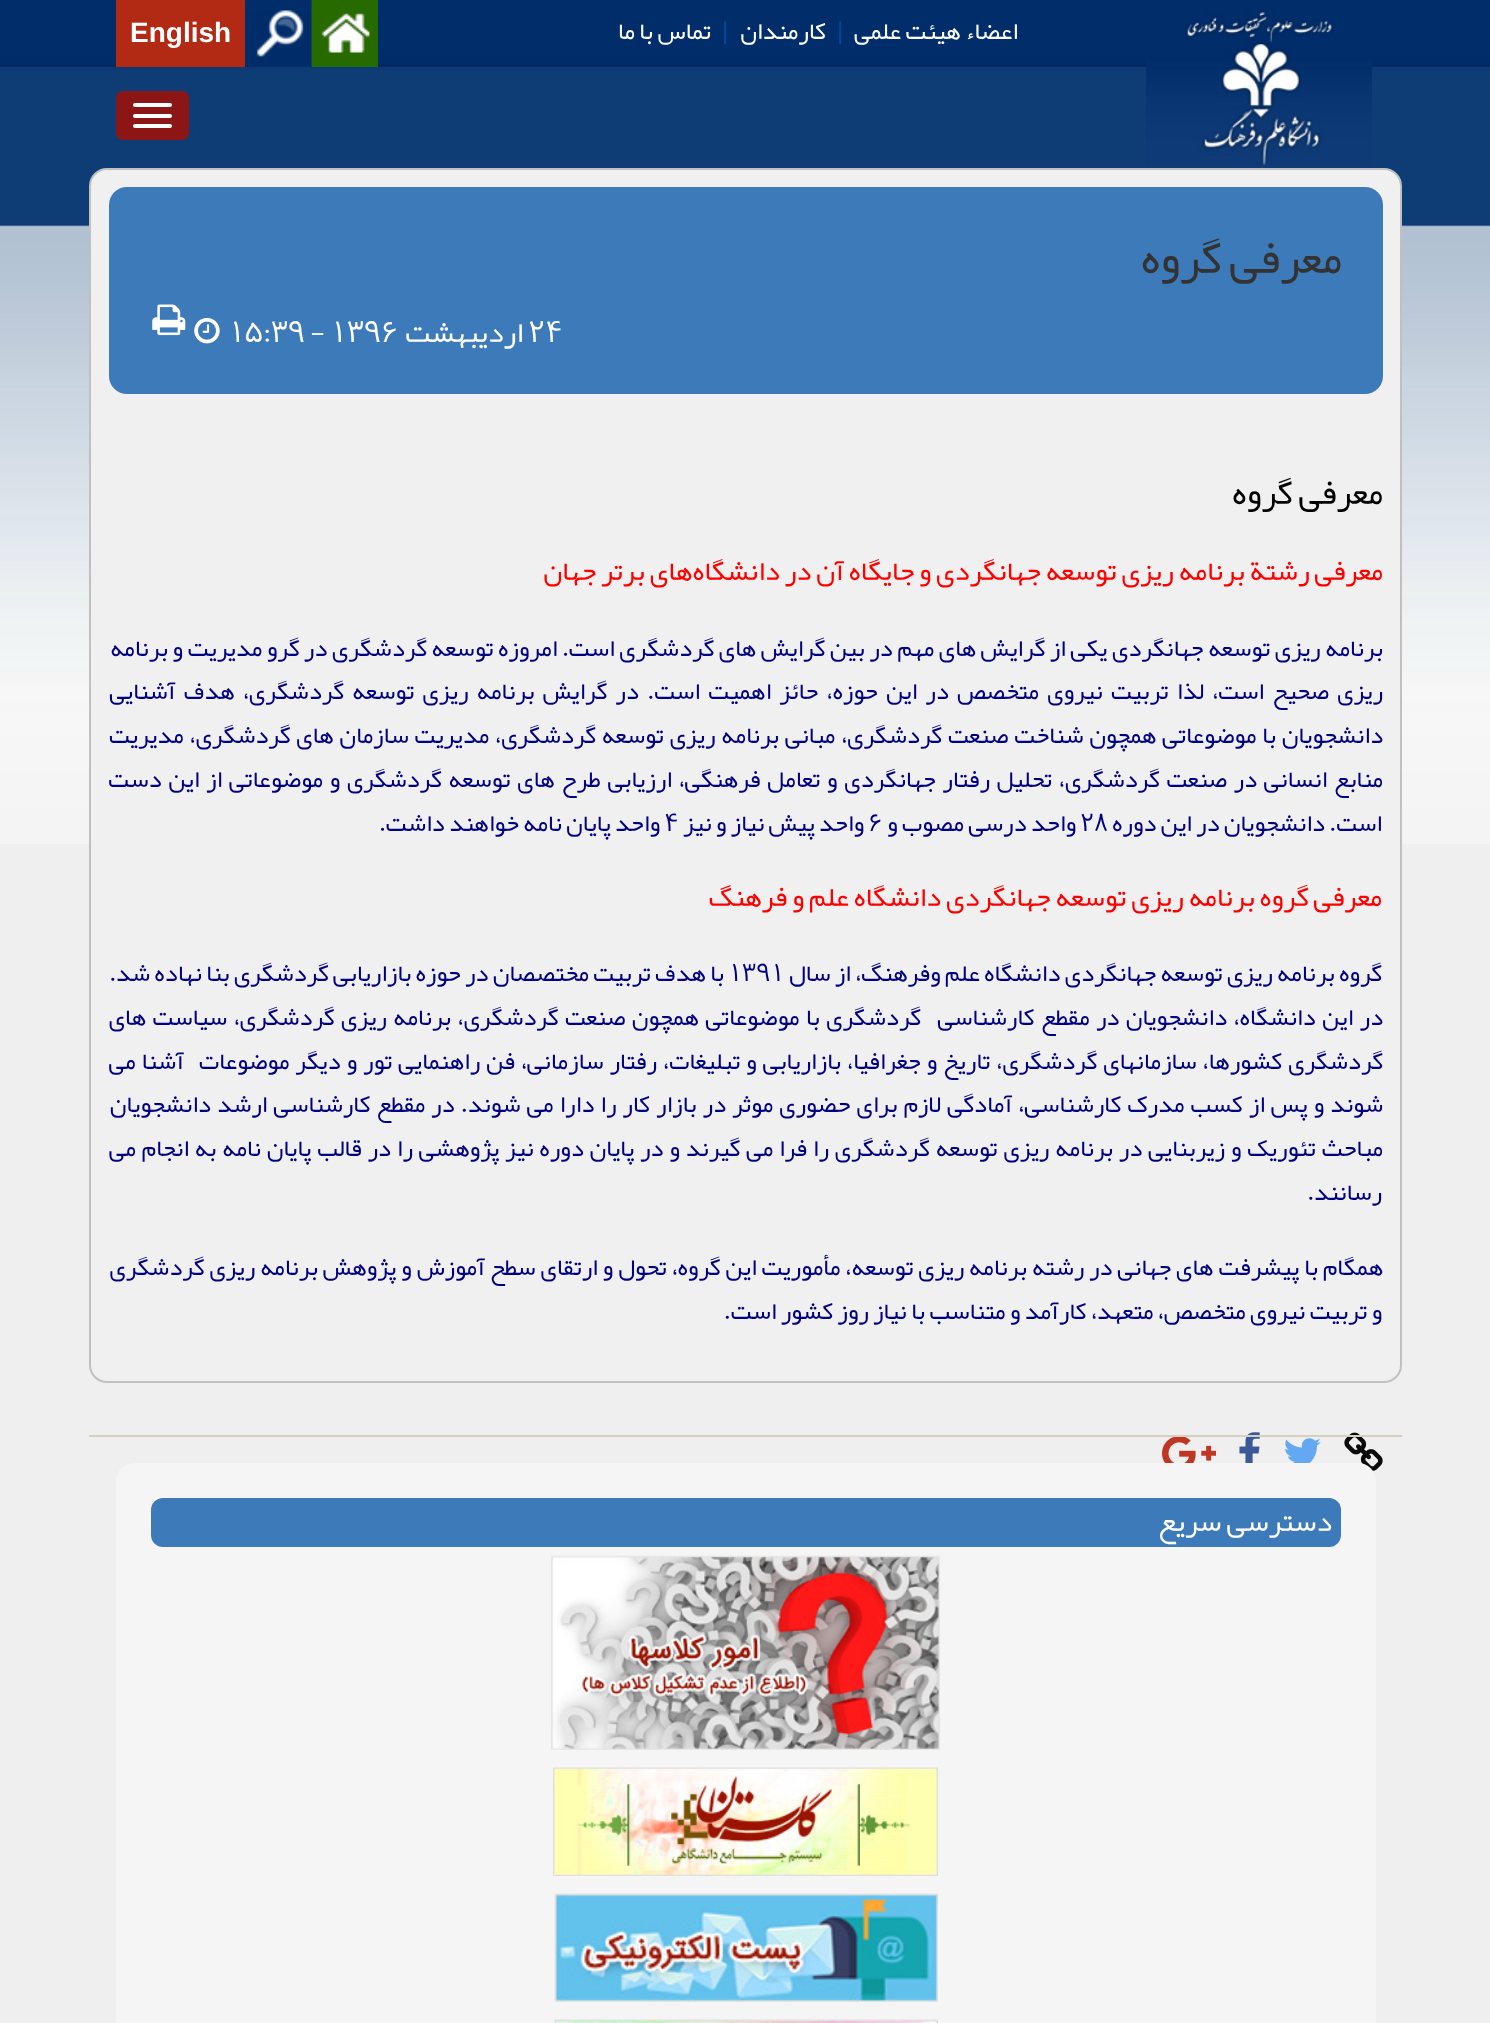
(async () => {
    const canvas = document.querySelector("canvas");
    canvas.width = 1490;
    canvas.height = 2023;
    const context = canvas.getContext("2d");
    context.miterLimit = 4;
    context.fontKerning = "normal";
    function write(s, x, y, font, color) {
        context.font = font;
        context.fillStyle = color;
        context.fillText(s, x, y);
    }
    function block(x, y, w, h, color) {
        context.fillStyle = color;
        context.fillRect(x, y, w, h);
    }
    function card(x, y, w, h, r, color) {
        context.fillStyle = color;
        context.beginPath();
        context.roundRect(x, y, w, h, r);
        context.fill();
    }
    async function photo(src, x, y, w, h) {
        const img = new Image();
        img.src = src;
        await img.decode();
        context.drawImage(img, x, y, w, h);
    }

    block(0, 0, 1490, 2023, "rgb(239, 239, 239)");
    await photo("media/1.png", 0, 0, 1490, 844);
    block(0, 66, 1490, 1, "rgb(4, 45, 98)");
    await photo("media/2.png", 1146, 9, 226, 156);
    card(116, 91, 73, 49, 7, "rgb(140, 21, 21)");
    card(133, 103, 39, 4, 2, "rgb(255, 255, 255)");
    card(133, 114, 39, 4, 2, "rgb(255, 255, 255)");
    card(133, 124, 39, 4, 2, "rgb(255, 255, 255)");
    context.direction = "rtl";
    write("اعضاء هیئت علمی", 1018, 39, "24.5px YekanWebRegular", "rgb(255, 255, 255)");
    context.direction = "ltr";
    write("|", 837, 39, "24.5px Liberation Sans", "rgb(3, 70, 160)");
    context.direction = "rtl";
    write("کارمندان", 826, 39, "24.5px YekanWebRegular", "rgb(255, 255, 255)");
    context.direction = "ltr";
    write("|", 722, 39, "24.5px Liberation Sans", "rgb(3, 70, 160)");
    context.direction = "rtl";
    write("تماس با ما", 711, 39, "24.5px YekanWebRegular", "rgb(255, 255, 255)");
    block(312, 66, 66, 1, "rgb(0, 128, 0)");
    await photo("media/4.png", 245, 10, 67, 57);
    await photo("media/3.png", 311, 0, 67, 67);
    block(116, 0, 129, 67, "rgb(178, 42, 20)");
    context.direction = "ltr";
    write("English", 130, 42, "bold 28px Liberation Sans", "rgb(255, 255, 255)");
    context.fillStyle = "rgb(240, 240, 240)";
    context.beginPath();
    context.roundRect(90, 169, 1311, 1213, 17);
    context.fill();
    context.strokeStyle = "rgb(192, 192, 192)";
    context.lineWidth = 2;
    context.stroke();
    card(109, 187, 1274, 207, 18, "rgb(61, 122, 185)");
    context.direction = "rtl";
    write("معرفی گروه", 1342, 273, "46px YekanWebRegular", "rgb(51, 51, 51)");
    context.direction = "ltr";
    write("24", 528, 342, "29.5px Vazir", "rgb(255, 255, 255)");
    context.direction = "rtl";
    write("اردیبهشت", 523, 342, "29.5px YekanWebRegular", "rgb(255, 255, 255)");
    context.direction = "ltr";
    write("1396", 330, 342, "29.5px Vazir", "rgb(255, 255, 255)");
    write("-", 310, 342, "29.5px YekanWebRegular", "rgb(255, 255, 255)");
    write("39", 271, 342, "29.5px Vazir", "rgb(255, 255, 255)");
    write(":", 263, 342, "29.5px YekanWebRegular", "rgb(255, 255, 255)");
    write("15", 228, 342, "29.5px Vazir", "rgb(255, 255, 255)");
    await photo("media/5.png", 194, 318, 26, 26);
    await photo("media/6.png", 152, 304, 34, 32);
    context.direction = "rtl";
    write("معرفی گروه", 1383, 504, "34.5px YekanWebRegular", "rgb(0, 0, 0)");
    write("معرفی رشتة برنامه ریزی توسعه جهانگردی و جایگاه آن در دانشگاه‌های برتر جهان", 1383, 580, "28px YekanWebRegular", "rgb(255, 0, 0)");
    context.wordSpacing = "0.3px";
    write("برنامه ریزی توسعه جهانگردی یکی از گرایش های مهم در بین گرایش های گردشگری است. امروزه توسعه گردشگری در گرو مدیریت و برنامه", 1383, 656, "24.5px YekanWebRegular", "rgb(0, 0, 128)");
    context.wordSpacing = "4px";
    write("ریزی صحیح است، لذا تربیت نیروی متخصص در این حوزه، حائز اهمیت است. در گرایش برنامه ریزی توسعه گردشگری، هدف آشنایی", 1383, 699, "24.5px YekanWebRegular", "rgb(0, 0, 128)");
    context.wordSpacing = "1.5px";
    write("دانشجویان با موضوعاتی همچون شناخت صنعت گردشگری، مبانی برنامه ریزی توسعه گردشگری، مدیریت سازمان های گردشگری، مدیریت", 1383, 743, "24.5px YekanWebRegular", "rgb(0, 0, 128)");
    context.wordSpacing = "2.4px";
    write("منابع انسانی در صنعت گردشگری، تحلیل رفتار جهانگردی و تعامل فرهنگی، ارزیابی طرح های توسعه گردشگری و موضوعاتی از این دست", 1383, 787, "24.5px YekanWebRegular", "rgb(0, 0, 128)");
    context.wordSpacing = "0px";
    write("است. دانشجویان در این دوره", 1382, 831, "24.5px YekanWebRegular", "rgb(0, 0, 128)");
    context.direction = "ltr";
    write("28", 1080, 831, "24.5px Vazir", "rgb(0, 0, 128)");
    context.direction = "rtl";
    write("واحد درسی مصوب و", 1076, 831, "24.5px YekanWebRegular", "rgb(0, 0, 128)");
    context.direction = "ltr";
    write("6", 868, 831, "24.5px Vazir", "rgb(0, 0, 128)");
    context.direction = "rtl";
    write("واحد پیش نیاز و نیز", 864, 831, "24.5px YekanWebRegular", "rgb(0, 0, 128)");
    context.direction = "ltr";
    write("4", 664, 831, "24.5px Vazir", "rgb(0, 0, 128)");
    context.direction = "rtl";
    write("واحد پایان نامه خواهند داشت.", 660, 831, "24.5px YekanWebRegular", "rgb(0, 0, 128)");
    write("معرفی گروه برنامه ریزی توسعه جهانگردی دانشگاه علم و فرهنگ", 1382, 906, "28px YekanWebRegular", "rgb(255, 0, 0)");
    write("گروه برنامه ریزی توسعه جهانگردی دانشگاه علم وفرهنگ، از سال", 1382, 981, "24.5px YekanWebRegular", "rgb(0, 0, 128)");
    context.direction = "ltr";
    write("1391", 728, 981, "24.5px Vazir", "rgb(0, 0, 128)");
    context.direction = "rtl";
    write("با هدف تربیت مختصصان در حوزه بازاریابی گردشگری بنا نهاده شد.", 724, 981, "24.5px YekanWebRegular", "rgb(0, 0, 128)");
    context.wordSpacing = "2.1px";
    write("در این دانشگاه، دانشجویان در مقطع کارشناسی", 1383, 1025, "24.5px YekanWebRegular", "rgb(0, 0, 128)");
    write("گردشگری با موضوعاتی همچون صنعت گردشگری، برنامه ریزی گردشگری، سیاست های", 921, 1025, "24.5px YekanWebRegular", "rgb(0, 0, 128)");
    context.wordSpacing = "1.7px";
    write("گردشگری کشورها، سازمانهای گردشگری، تاریخ و جغرافیا، بازاریابی و تبلیغات، رفتار سازمانی، فن راهنمایی تور و دیگر موضوعات", 1383, 1069, "24.5px YekanWebRegular", "rgb(0, 0, 128)");
    write("آشنا می", 184, 1069, "24.5px YekanWebRegular", "rgb(0, 0, 128)");
    context.wordSpacing = "1.75px";
    write("شوند و پس از کسب مدرک کارشناسی، آمادگی لازم برای حضوری موثر در بازار کار را دارا می شوند. در مقطع کارشناسی ارشد دانشجویان", 1383, 1112, "24.5px YekanWebRegular", "rgb(0, 0, 128)");
    context.wordSpacing = "1.6px";
    write("مباحث تئوریک و زیربنایی در برنامه ریزی توسعه گردشگری را فرا می گیرند و در پایان دوره نیز پژوهشی را در قالب پایان نامه به انجام می", 1383, 1156, "24.5px YekanWebRegular", "rgb(0, 0, 128)");
    context.wordSpacing = "0px";
    write("رسانند.", 1382, 1200, "24.5px YekanWebRegular", "rgb(0, 0, 128)");
    context.wordSpacing = "0.6px";
    write("همگام با پیشرفت های جهانی در رشته برنامه ریزی توسعه، مأموریت این گروه، تحول و ارتقای سطح آموزش و پژوهش برنامه ریزی گردشگری", 1383, 1275, "24.5px YekanWebRegular", "rgb(0, 0, 128)");
    context.wordSpacing = "0px";
    write("و تربیت نیروی متخصص، متعهد، کارآمد و متناسب با نیاز روز کشور است.", 1382, 1319, "24.5px YekanWebRegular", "rgb(0, 0, 128)");
    await photo("media/7.png", 1344, 1432, 39, 39);
    await photo("media/8.png", 1285, 1438, 36, 25);
    await photo("media/9.png", 1239, 1432, 21, 31);
    await photo("media/10.png", 1162, 1437, 54, 26);
    block(89, 1435, 1313, 2, "rgb(213, 208, 192)");
    card(116, 1463, 1260, 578, 18, "rgb(245, 245, 245)");
    card(151, 1498, 1190, 49, 12, "rgb(61, 122, 185)");
    write("دسترسی سریع", 1332, 1531, "29.5px YekanWebRegular", "rgb(255, 255, 255)");
    await photo("media/11.png", 551, 1555, 389, 195);
    await photo("media/12.png", 553, 1767, 385, 109);
    await photo("media/13.png", 554, 1893, 384, 109);
    await photo("media/14.png", 554, 2019, 384, 4);
})();
